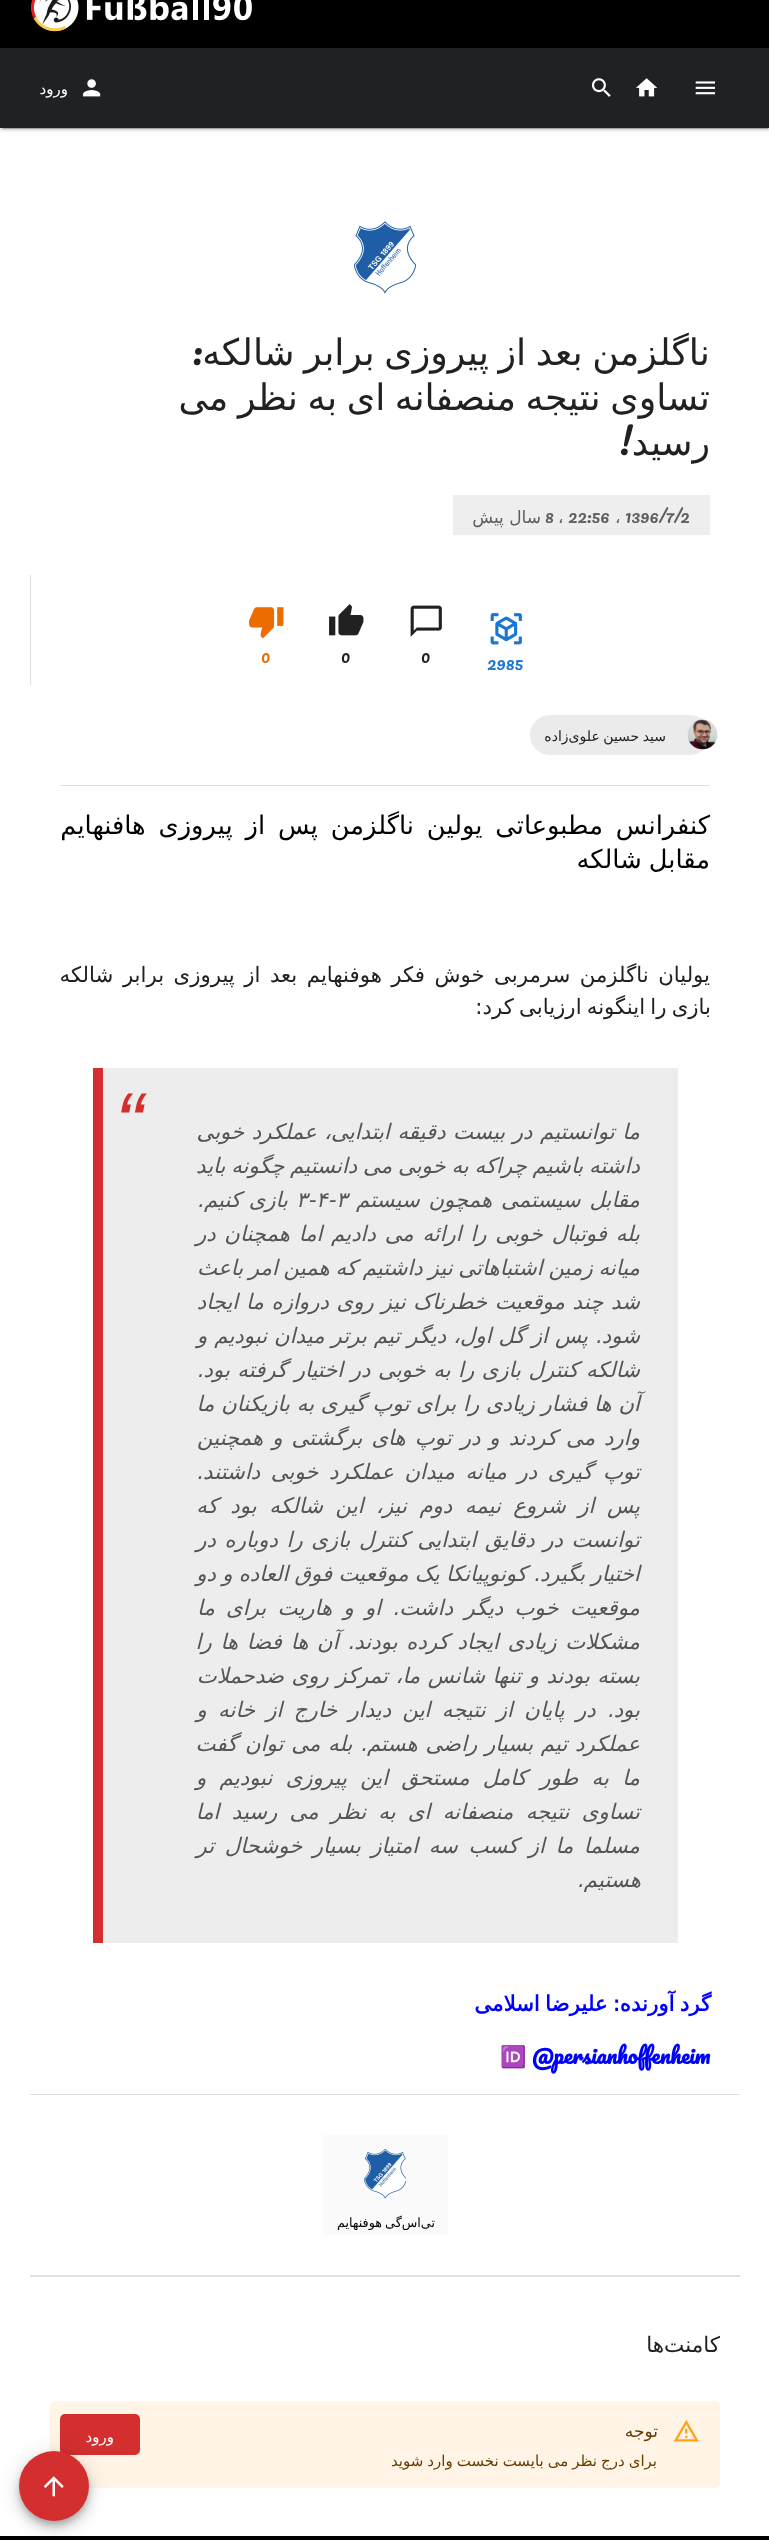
(async () => {
    const canvas = document.querySelector("canvas");
    canvas.width = 769;
    canvas.height = 2540;
    const context = canvas.getContext("2d");
    context.miterLimit = 4;
    context.fontKerning = "normal";
    function write(s, x, y, font, color) {
        context.font = font;
        context.fillStyle = color;
        context.fillText(s, x, y);
    }
    function block(x, y, w, h, color) {
        context.fillStyle = color;
        context.fillRect(x, y, w, h);
    }
    function card(x, y, w, h, r, color) {
        context.fillStyle = color;
        context.beginPath();
        context.roundRect(x, y, w, h, r);
        context.fill();
    }
    async function photo(src, x, y, w, h) {
        const img = new Image();
        img.src = src;
        await img.decode();
        context.drawImage(img, x, y, w, h);
    }

    block(0, 0, 769, 2540, "rgb(255, 255, 255)");
    block(0, 0, 769, 48, "rgb(0, 0, 0)");
    await photo("media/1.png", 86, 0, 166, 21);
    await photo("media/2.png", 31, 0, 48, 32);
    context.fillStyle = "rgba(0, 0, 0, 0.12)";
    context.filter = "blur(3px)";
    context.beginPath();
    context.rect(0, 49, 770, 80);
    context.fill();
    context.filter = "none";
    context.fillStyle = "rgba(0, 0, 0, 0.14)";
    context.filter = "blur(1px)";
    context.beginPath();
    context.rect(0, 50, 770, 80);
    context.fill();
    context.filter = "none";
    context.fillStyle = "rgba(0, 0, 0, 0.2)";
    context.filter = "blur(0.5px)";
    context.beginPath();
    context.rect(3, 54, 765, 75);
    context.fill();
    context.filter = "none";
    block(0, 48, 769, 80, "rgb(32, 33, 37)");
    await photo("media/3.png", 695, 81, 20, 14);
    await photo("media/4.png", 636, 78, 22, 19);
    await photo("media/5.png", 592, 78, 19, 19);
    await photo("media/6.png", 83, 79, 18, 18);
    context.direction = "rtl";
    write("ورود", 68, 94, "15px DejaVu Sans", "rgb(255, 255, 255)");
    card(50, 2401, 670, 87, 5, "rgb(255, 244, 229)");
    card(60, 2414, 80, 41, 5, "rgb(211, 47, 47)");
    block(0, 2536, 769, 4, "rgb(0, 0, 0)");
    context.fillStyle = "rgba(0, 0, 0, 0.12)";
    context.filter = "blur(11px)";
    context.beginPath();
    context.roundRect(19, 2453, 70, 70, 35);
    context.fill();
    context.filter = "none";
    context.fillStyle = "rgba(0, 0, 0, 0.14)";
    context.filter = "blur(6px)";
    context.beginPath();
    context.roundRect(19, 2459, 70, 70, 35);
    context.fill();
    context.filter = "none";
    context.fillStyle = "rgba(0, 0, 0, 0.2)";
    context.filter = "blur(3px)";
    context.beginPath();
    context.roundRect(20, 2456, 68, 68, 34);
    context.fill();
    context.filter = "none";
    context.fillStyle = "rgb(211, 47, 47)";
    context.beginPath();
    context.arc(54, 2486, 35, 0, Math.PI * 2);
    context.fill();
    await photo("media/7.png", 43, 2476, 21, 21);
    await photo("media/8.png", 354, 221, 62, 73);
    context.wordSpacing = "-2px";
    write("ناگلزمن بعد از پیروزی برابر شالکه", 710, 365, "36.4px DejaVu Sans", "rgb(33, 33, 33)");
    context.wordSpacing = "0px";
    write(":", 202, 365, "36.4px Pacifico", "rgb(33, 33, 33)");
    context.wordSpacing = "-2px";
    write("تساوی نتیجه منصفانه ای به نظر می", 710, 410, "36.4px DejaVu Sans", "rgb(33, 33, 33)");
    context.wordSpacing = "0px";
    write("رسید", 710, 455, "36.4px DejaVu Sans", "rgb(33, 33, 33)");
    write("!", 632, 455, "36.4px Pacifico", "rgb(33, 33, 33)");
    block(453, 495, 257, 40, "rgb(238, 238, 238)");
    context.direction = "ltr";
    write("1396/7/2", 625, 523, "17px Pacifico", "rgb(95, 95, 95)");
    write("،", 615, 523, "17px DejaVu Sans", "rgb(95, 95, 95)");
    write("22:56", 568, 523, "17px Pacifico", "rgb(95, 95, 95)");
    write("،", 558, 523, "17px DejaVu Sans", "rgb(95, 95, 95)");
    write("8", 545, 523, "17px Pacifico", "rgb(95, 95, 95)");
    context.direction = "rtl";
    write("سال پیش", 541, 523, "17px DejaVu Sans", "rgb(95, 95, 95)");
    block(30, 575, 1, 110, "rgb(224, 224, 224)");
    await photo("media/9.png", 410, 605, 32, 32);
    context.direction = "ltr";
    write("0", 421, 663, "17px Pacifico", "rgb(33, 33, 33)");
    await photo("media/10.png", 329, 604, 35, 32);
    write("0", 341, 663, "17px Pacifico", "rgb(33, 33, 33)");
    await photo("media/11.png", 249, 607, 35, 32);
    write("0", 261, 663, "17px Pacifico", "rgb(237, 108, 2)");
    await photo("media/12.png", 490, 613, 32, 32);
    write("2985", 487, 670, "17px Pacifico", "rgb(25, 118, 210)");
    card(530, 715, 180, 40, 20, "rgb(235, 235, 235)");
    await photo("media/13.png", 687, 719, 31, 31);
    context.wordSpacing = "-1px";
    context.direction = "rtl";
    write("سید حسین علوی‌زاده", 666, 741, "14px DejaVu Sans", "rgb(33, 33, 33)");
    block(60, 785, 650, 1, "rgb(224, 224, 224)");
    context.wordSpacing = "4.75px";
    write("کنفرانس مطبوعاتی یولین ناگلزمن پس از پیروزی هافنهایم", 710, 834, "25.7px DejaVu Sans", "rgb(0, 0, 0)");
    context.wordSpacing = "-1px";
    write("مقابل شالکه", 710, 868, "25.7px DejaVu Sans", "rgb(0, 0, 0)");
    context.wordSpacing = "2.75px";
    write("یولیان ناگلزمن سرمربی خوش فکر هوفنهایم بعد از پیروزی برابر شالکه", 710, 982, "21.25px DejaVu Sans", "rgb(33, 33, 33)");
    context.wordSpacing = "-1.5px";
    write("بازی را اینگونه ارزیابی کرد:", 711, 1014, "21.25px DejaVu Sans", "rgb(33, 33, 33)");
    block(103, 1068, 575, 875, "rgb(237, 237, 237)");
    block(93, 1068, 10, 875, "rgb(211, 47, 47)");
    context.wordSpacing = "0px";
    context.direction = "ltr";
    write("“", 115, 1152, "italic 85px Liberation Sans", "rgb(211, 47, 47)");
    context.wordSpacing = "0.75px";
    context.direction = "rtl";
    write("ما توانستیم در بیست دقیقه ابتدایی، عملکرد خوبی", 640, 1139, "italic 21.25px DejaVu Sans", "rgb(85, 85, 85)");
    context.wordSpacing = "-1px";
    write("داشته باشیم چراکه به خوبی می دانستیم چگونه باید", 640, 1173, "italic 21.25px DejaVu Sans", "rgb(85, 85, 85)");
    context.wordSpacing = "2px";
    write("مقابل سیستمی همچون سیستم", 640, 1207, "italic 21.25px DejaVu Sans", "rgb(85, 85, 85)");
    context.wordSpacing = "0px";
    context.direction = "ltr";
    write("۳", 336, 1207, "italic 21.25px DejaVu Sans", "rgb(85, 85, 85)");
    write("۴-", 316, 1207, "italic 21.25px DejaVu Sans", "rgb(85, 85, 85)");
    write("۳-", 296, 1207, "italic 21.25px DejaVu Sans", "rgb(85, 85, 85)");
    context.wordSpacing = "1px";
    context.direction = "rtl";
    write("بازی کنیم.", 288, 1207, "italic 21.25px DejaVu Sans", "rgb(85, 85, 85)");
    context.wordSpacing = "1.9px";
    write("بله فوتبال خوبی را ارائه می دادیم اما همچنان در", 640, 1241, "italic 21.25px DejaVu Sans", "rgb(85, 85, 85)");
    context.wordSpacing = "-1px";
    write("میانه زمین اشتباهاتی نیز داشتیم که همین امر باعث", 640, 1275, "italic 21.25px DejaVu Sans", "rgb(85, 85, 85)");
    context.wordSpacing = "1px";
    write("شد چند موقعیت خطرناک نیز روی دروازه ما ایجاد", 640, 1309, "italic 21.25px DejaVu Sans", "rgb(85, 85, 85)");
    context.wordSpacing = "0.25px";
    write("شود. پس از گل اول، دیگر تیم برتر میدان نبودیم و", 640, 1343, "italic 21.25px DejaVu Sans", "rgb(85, 85, 85)");
    context.wordSpacing = "0.75px";
    write("شالکه کنترل بازی را به خوبی در اختیار گرفته بود.", 640, 1377, "italic 21.25px DejaVu Sans", "rgb(85, 85, 85)");
    context.wordSpacing = "0px";
    write("آن ها فشار زیادی را برای توپ گیری به بازیکنان ما", 640, 1411, "italic 21.25px DejaVu Sans", "rgb(85, 85, 85)");
    context.wordSpacing = "2.25px";
    write("وارد می کردند و در توپ های برگشتی و همچنین", 640, 1445, "italic 21.25px DejaVu Sans", "rgb(85, 85, 85)");
    context.wordSpacing = "3.75px";
    write("توپ گیری در میانه میدان عملکرد خوبی داشتند.", 640, 1479, "italic 21.25px DejaVu Sans", "rgb(85, 85, 85)");
    context.wordSpacing = "5.75px";
    write("پس از شروع نیمه دوم نیز، این شالکه بود که", 640, 1513, "italic 21.25px DejaVu Sans", "rgb(85, 85, 85)");
    context.wordSpacing = "1.75px";
    write("توانست در دقایق ابتدایی کنترل بازی را دوباره در", 640, 1547, "italic 21.25px DejaVu Sans", "rgb(85, 85, 85)");
    context.wordSpacing = "-0.5px";
    write("اختیار بگیرد. کونوپیانکا یک موقعیت فوق العاده و دو", 640, 1581, "italic 21.25px DejaVu Sans", "rgb(85, 85, 85)");
    context.wordSpacing = "4.5px";
    write("موقعیت خوب دیگر داشت. او و هاریت برای ما", 640, 1615, "italic 21.25px DejaVu Sans", "rgb(85, 85, 85)");
    context.wordSpacing = "2px";
    write("مشکلات زیادی ایجاد کرده بودند. آن ها فضا ها را", 640, 1649, "italic 21.25px DejaVu Sans", "rgb(85, 85, 85)");
    context.wordSpacing = "0.75px";
    write("بسته بودند و تنها شانس ما، تمرکز روی ضدحملات", 640, 1683, "italic 21.25px DejaVu Sans", "rgb(85, 85, 85)");
    context.wordSpacing = "4.5px";
    write("بود. در پایان از نتیجه این دیدار خارج از خانه و", 640, 1717, "italic 21.25px DejaVu Sans", "rgb(85, 85, 85)");
    context.wordSpacing = "1px";
    write("عملکرد تیم بسیار راضی هستم. بله می توان گفت", 640, 1751, "italic 21.25px DejaVu Sans", "rgb(85, 85, 85)");
    context.wordSpacing = "6.5px";
    write("ما به طور کامل مستحق این پیروزی نبودیم و", 640, 1785, "italic 21.25px DejaVu Sans", "rgb(85, 85, 85)");
    context.wordSpacing = "5.5px";
    write("تساوی نتیجه منصفانه ای به نظر می رسید اما", 640, 1819, "italic 21.25px DejaVu Sans", "rgb(85, 85, 85)");
    context.wordSpacing = "3.75px";
    write("مسلما ما از کسب سه امتیاز بسیار خوشحال تر", 640, 1853, "italic 21.25px DejaVu Sans", "rgb(85, 85, 85)");
    context.wordSpacing = "0px";
    write("هستیم.", 641, 1887, "italic 21.25px DejaVu Sans", "rgb(85, 85, 85)");
    context.wordSpacing = "-1.5px";
    write("گرد آورنده: علیرضا اسلامی", 711, 2011, "bold 21.25px DejaVu Sans", "rgb(0, 0, 255)");
    context.wordSpacing = "0px";
    context.direction = "ltr";
    write("@persianhoffenheim", 532, 2064, "bold 21.25px Pacifico", "rgb(0, 0, 255)");
    write("🆔", 500, 2064, "bold 21.25px Noto Color Emoji", "rgb(0, 0, 255)");
    block(30, 2094, 710, 1, "rgb(224, 224, 224)");
    block(323, 2135, 125, 100, "rgb(250, 250, 250)");
    await photo("media/14.png", 364, 2149, 42, 50);
    context.wordSpacing = "-1px";
    context.direction = "rtl";
    write("تی‌اس‌گی هوفنهایم", 435, 2227, "12.75px DejaVu Sans", "rgb(0, 0, 0)");
    block(30, 2275, 710, 2, "rgb(224, 224, 224)");
    context.wordSpacing = "0px";
    write("کامنت‌ها", 720, 2352, "21.5px DejaVu Sans", "rgb(33, 33, 33)");
    await photo("media/15.png", 673, 2420, 26, 22);
    write("توجه", 658, 2437, "17px DejaVu Sans", "rgb(102, 60, 0)");
    context.save();
    context.beginPath();
    context.rect(391, 2409, 267, 71);
    context.clip();
    context.wordSpacing = "-0.75px";
    write("برای درج نظر می بایست نخست وارد شوید", 657, 2466, "15px DejaVu Sans", "rgb(102, 60, 0)");
    context.restore();
    write("ورود", 114, 2442, "15px DejaVu Sans", "rgb(255, 255, 255)");
})();
